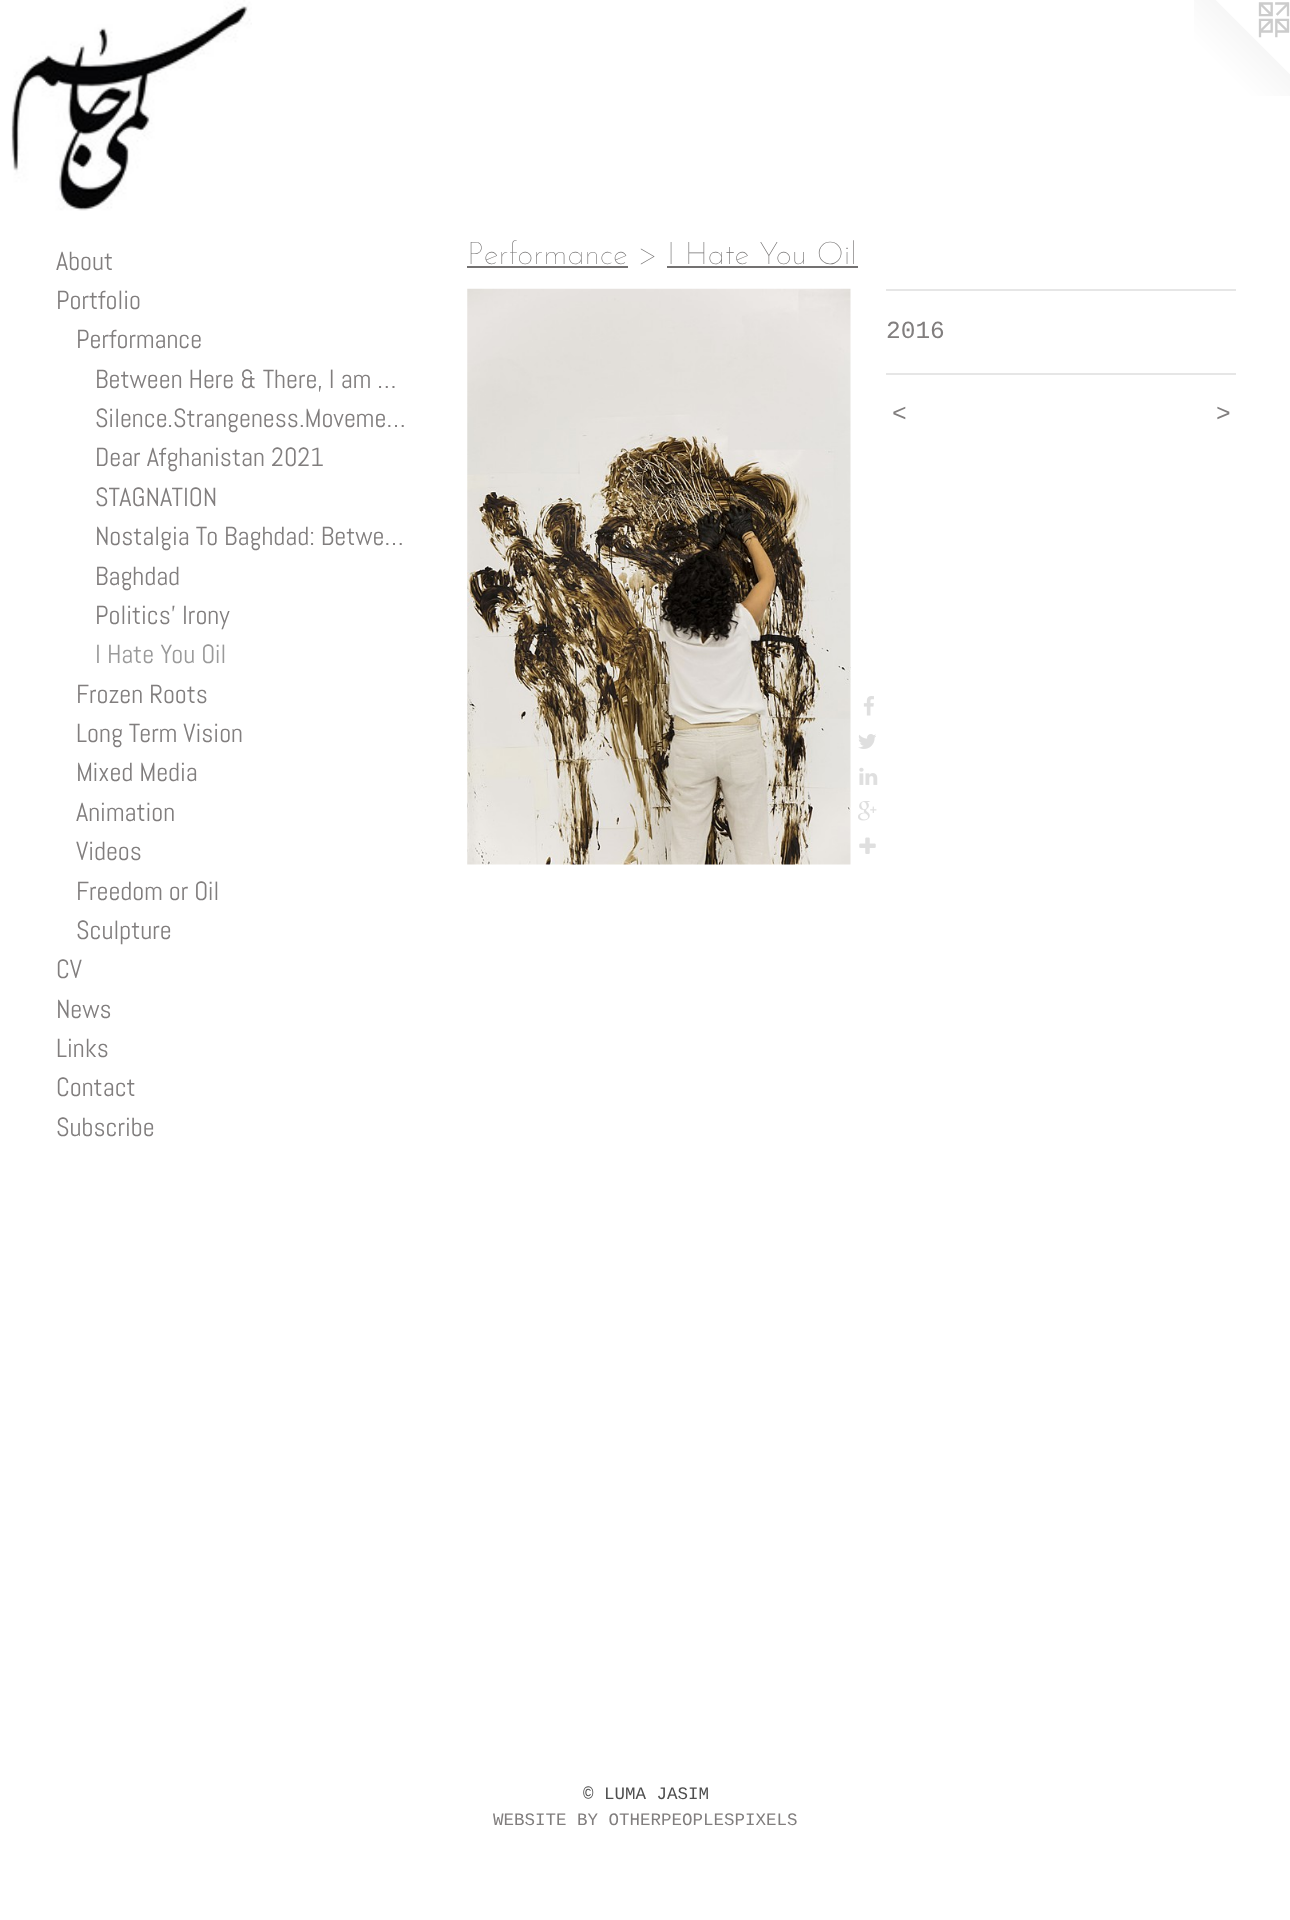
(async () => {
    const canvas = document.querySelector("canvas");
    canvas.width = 1290;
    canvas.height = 1920;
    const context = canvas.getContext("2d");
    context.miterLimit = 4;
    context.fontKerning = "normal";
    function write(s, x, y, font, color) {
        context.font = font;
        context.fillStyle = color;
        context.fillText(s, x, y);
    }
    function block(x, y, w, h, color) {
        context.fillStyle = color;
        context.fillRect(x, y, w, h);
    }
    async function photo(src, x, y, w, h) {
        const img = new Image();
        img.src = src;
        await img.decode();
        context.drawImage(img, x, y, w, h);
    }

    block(0, 0, 1290, 1920, "rgb(255, 255, 255)");
    await photo("media/1.png", 11, 0, 241, 211);
    await photo("media/2.png", 1194, 0, 96, 96);
    write("About", 56, 270, "26.25px Abel", "rgb(129, 126, 126)");
    write("Portfolio", 56, 309, "26.25px Abel", "rgb(129, 126, 126)");
    write("Performance", 76, 348, "26.25px Abel", "rgb(129, 126, 126)");
    write("Between Here & There, I am …", 95, 388, "26.25px Abel", "rgb(129, 126, 126)");
    write("Silence.Strangeness.Moveme…", 95, 427, "26.25px Abel", "rgb(129, 126, 126)");
    write("Dear Afghanistan 2021", 95, 466, "26.25px Abel", "rgb(129, 126, 126)");
    write("STAGNATION", 95, 506, "26.25px Abel", "rgb(129, 126, 126)");
    write("Nostalgia To Baghdad: Betwe…", 95, 545, "26.25px Abel", "rgb(129, 126, 126)");
    write("Baghdad", 95, 585, "26.25px Abel", "rgb(129, 126, 126)");
    write("Politics' Irony", 95, 624, "26.25px Abel", "rgb(129, 126, 126)");
    write("I Hate You Oil", 95, 663, "26.25px Abel", "rgb(154, 154, 154)");
    write("Frozen Roots", 76, 703, "26.25px Abel", "rgb(129, 126, 126)");
    write("Long Term Vision", 76, 742, "26.25px Abel", "rgb(129, 126, 126)");
    write("Mixed Media", 76, 781, "26.25px Abel", "rgb(129, 126, 126)");
    write("Animation", 76, 821, "26.25px Abel", "rgb(129, 126, 126)");
    write("Videos", 76, 860, "26.25px Abel", "rgb(129, 126, 126)");
    write("Freedom or Oil", 76, 900, "26.25px Abel", "rgb(129, 126, 126)");
    write("Sculpture", 76, 939, "26.25px Abel", "rgb(129, 126, 126)");
    write("CV", 56, 978, "26.25px Abel", "rgb(129, 126, 126)");
    write("News", 56, 1018, "26.25px Abel", "rgb(129, 126, 126)");
    write("Links", 56, 1057, "26.25px Abel", "rgb(129, 126, 126)");
    write("Contact", 56, 1096, "26.25px Abel", "rgb(129, 126, 126)");
    write("Subscribe", 56, 1136, "26.25px Abel", "rgb(129, 126, 126)");
    write("Performance > I Hate You Oil", 467, 264, "100 31.5px Josefin Sans", "rgb(115, 113, 113)");
    block(467, 266, 161, 2, "rgb(115, 113, 113)");
    block(667, 266, 191, 2, "rgb(115, 113, 113)");
    await photo("media/3.png", 467, 288, 384, 577);
    await photo("media/4.png", 863, 696, 11, 20);
    await photo("media/5.png", 858, 734, 18, 15);
    await photo("media/6.png", 859, 767, 19, 18);
    await photo("media/7.png", 858, 801, 19, 20);
    await photo("media/8.png", 859, 837, 17, 17);
    block(886, 289, 350, 2, "rgb(230, 230, 230)");
    write("2016", 886, 338, "24.5px Liberation Mono", "rgb(129, 126, 126)");
    block(886, 373, 350, 2, "rgb(230, 230, 230)");
    context.letterSpacing = "2px";
    write("<", 892, 421, "italic 24.5px Liberation Mono", "rgb(129, 126, 126)");
    write(">", 1216, 421, "italic 24.5px Liberation Mono", "rgb(129, 126, 126)");
    context.letterSpacing = "0px";
    write("© LUMA JASIM", 583, 1799, "17.5px Liberation Mono", "rgb(79, 79, 79)");
    write("WEBSITE BY OTHERPEOPLESPIXELS", 493, 1825, "17.5px Liberation Mono", "rgb(129, 126, 126)");
})();
